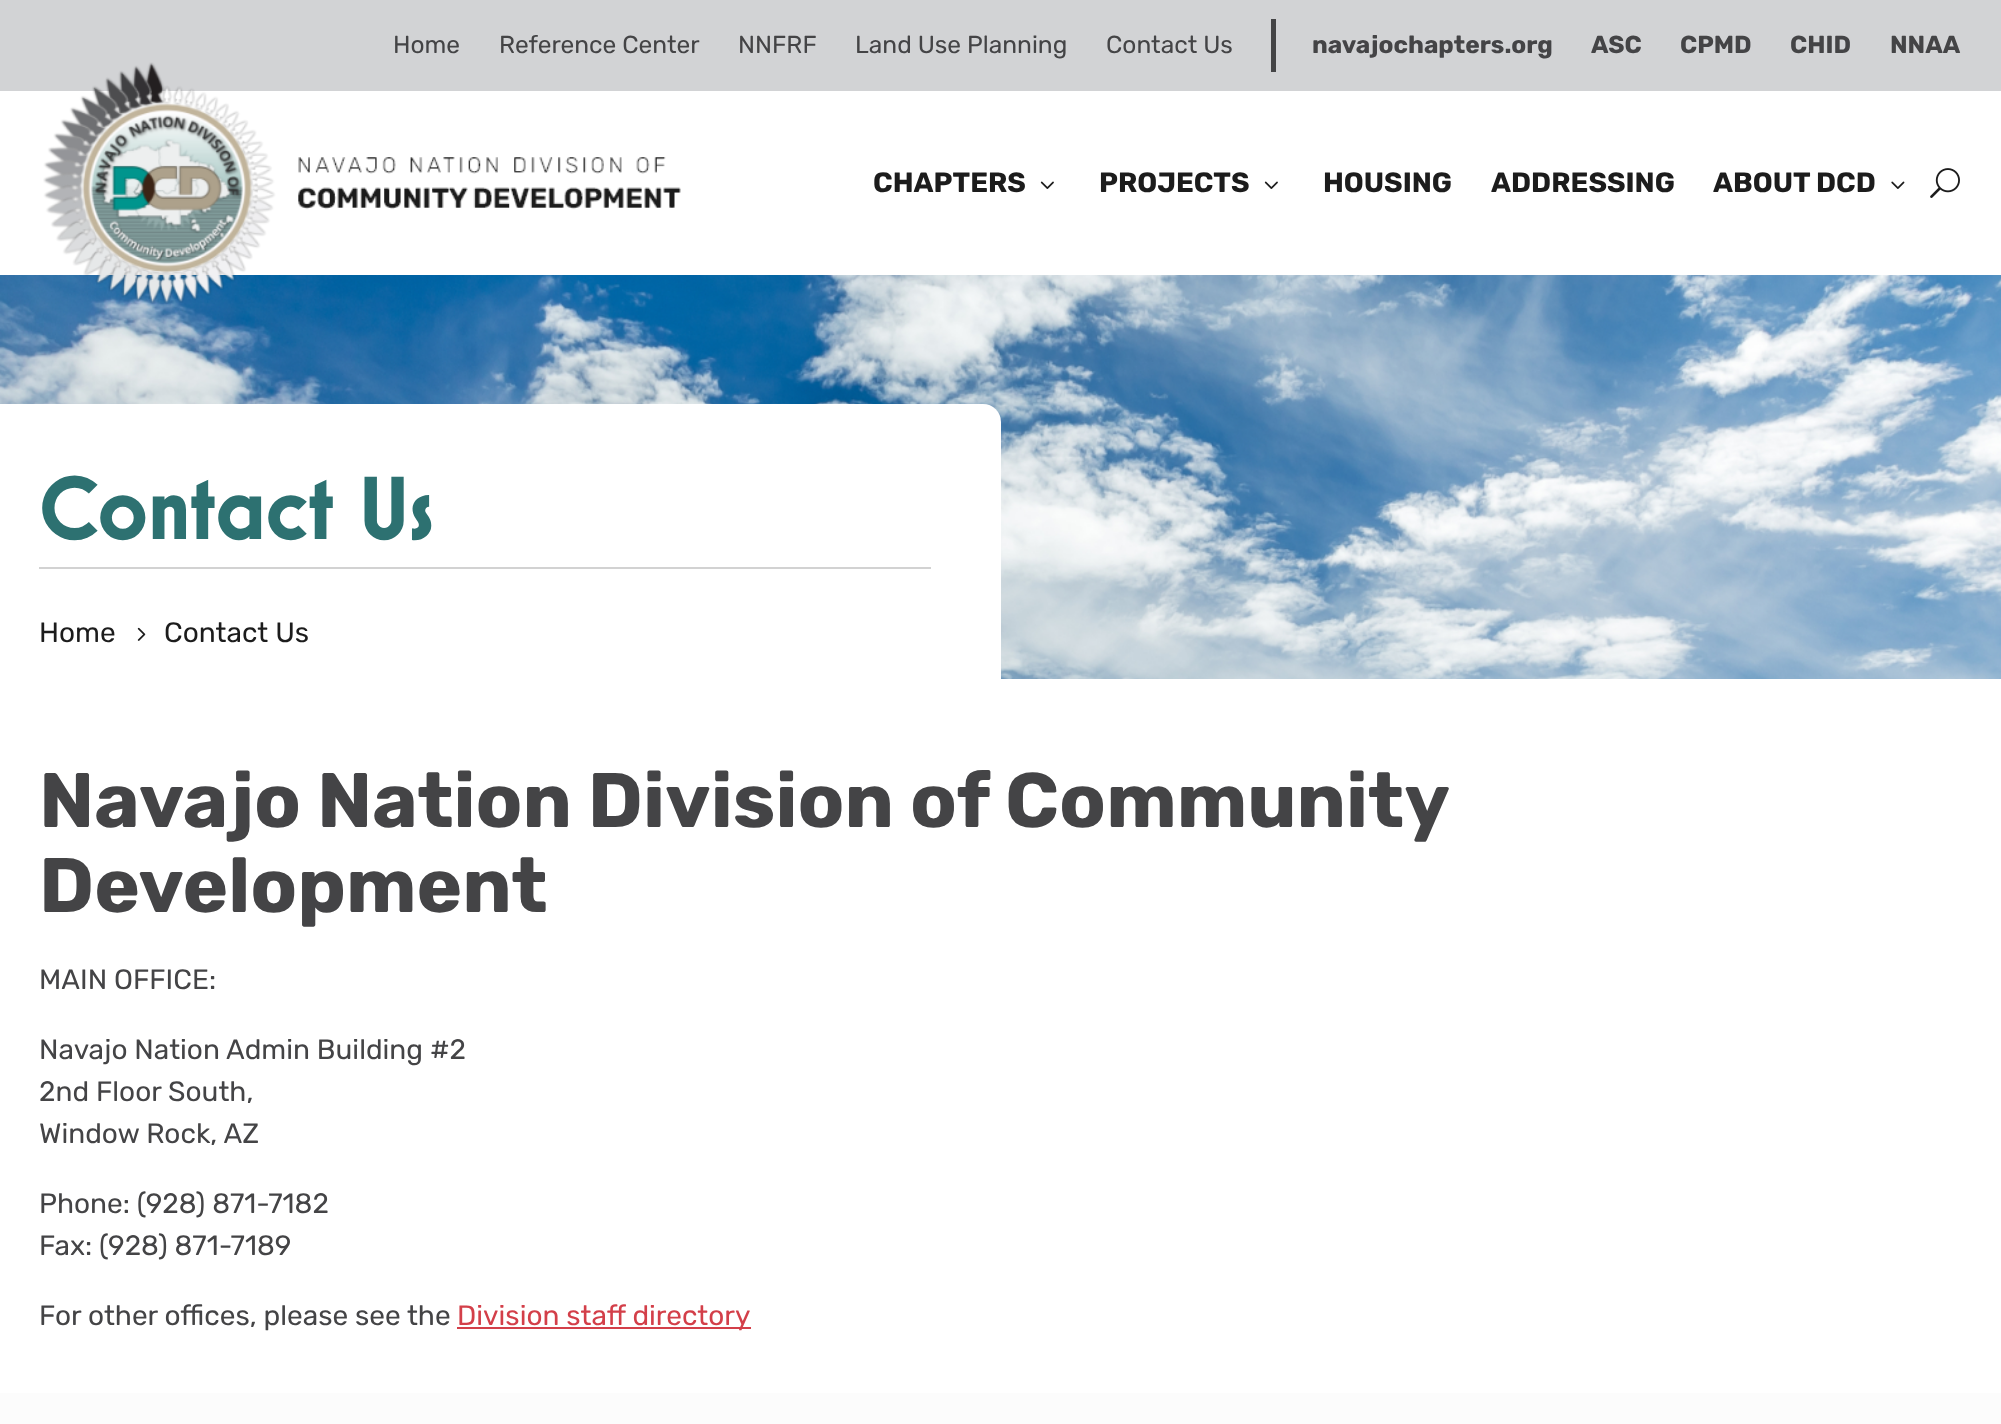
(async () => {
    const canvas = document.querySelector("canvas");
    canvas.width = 2001;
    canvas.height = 1424;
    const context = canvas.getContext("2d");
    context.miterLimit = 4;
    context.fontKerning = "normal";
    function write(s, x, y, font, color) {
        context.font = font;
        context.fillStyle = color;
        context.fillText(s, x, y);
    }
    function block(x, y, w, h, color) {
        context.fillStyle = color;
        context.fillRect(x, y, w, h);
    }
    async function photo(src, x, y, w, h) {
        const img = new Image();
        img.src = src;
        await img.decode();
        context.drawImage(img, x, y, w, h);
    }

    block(0, 0, 2001, 1424, "rgb(255, 255, 255)");
    block(0, 0, 2001, 91, "rgb(210, 211, 213)");
    write("Home", 393, 53, "24.5px Rubik", "rgb(68, 68, 70)");
    write("Reference Center", 499, 53, "24.5px Rubik", "rgb(68, 68, 70)");
    write("NNFRF", 738, 53, "24.5px Rubik", "rgb(68, 68, 70)");
    write("Land Use Planning", 855, 53, "24.5px Rubik", "rgb(68, 68, 70)");
    write("Contact Us", 1106, 53, "24.5px Rubik", "rgb(68, 68, 70)");
    block(1271, 19, 5, 53, "rgb(68, 68, 70)");
    write("navajochapters.org", 1312, 53, "bold 24.5px Rubik", "rgb(68, 68, 70)");
    write("ASC", 1591, 53, "bold 24.5px Rubik", "rgb(68, 68, 70)");
    write("CPMD", 1680, 53, "bold 24.5px Rubik", "rgb(68, 68, 70)");
    write("CHID", 1790, 53, "bold 24.5px Rubik", "rgb(68, 68, 70)");
    write("NNAA", 1890, 53, "bold 24.5px Rubik", "rgb(68, 68, 70)");
    await photo("media/5.png", 0, 275, 2001, 404);
    await photo("media/1.png", 43, 62, 638, 242);
    write("CHAPTERS", 873, 192, "bold 28px Rubik", "rgb(28, 28, 28)");
    await photo("media/2.png", 1040, 181, 14, 8);
    write("PROJECTS", 1099, 192, "bold 28px Rubik", "rgb(28, 28, 28)");
    await photo("media/2.png", 1264, 181, 14, 8);
    write("HOUSING", 1323, 192, "bold 28px Rubik", "rgb(28, 28, 28)");
    write("ADDRESSING", 1491, 192, "bold 28px Rubik", "rgb(28, 28, 28)");
    write("ABOUT DCD", 1713, 192, "bold 28px Rubik", "rgb(28, 28, 28)");
    await photo("media/3.png", 1891, 181, 14, 8);
    await photo("media/4.png", 1930, 168, 30, 30);
    context.fillStyle = "rgb(255, 255, 255)";
    context.beginPath();
    context.roundRect(0, 404, 1001, 275, [0, 18, 0, 0]);
    context.fill();
    write("Contact Us", 39, 539, "bold 91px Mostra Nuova", "rgb(45, 113, 113)");
    block(39, 567, 892, 2, "rgb(210, 210, 210)");
    write("Home", 39, 642, "28px Rubik", "rgb(28, 28, 28)");
    await photo("media/6.png", 137, 627, 9, 14);
    write("Contact Us", 164, 642, "28px Rubik", "rgb(28, 28, 28)");
    context.wordSpacing = "-0.5px";
    write("Navajo Nation Division of Community", 39, 827, "bold 77px Rubik", "rgb(68, 68, 70)");
    context.wordSpacing = "0px";
    write("Development", 39, 912, "bold 77px Rubik", "rgb(68, 68, 70)");
    write("MAIN OFFICE:", 39, 989, "28px Rubik", "rgb(68, 68, 70)");
    write("Navajo Nation Admin Building #2", 39, 1059, "28px Rubik", "rgb(68, 68, 70)");
    write("2nd Floor South,", 39, 1101, "28px Rubik", "rgb(68, 68, 70)");
    write("Window Rock, AZ", 39, 1143, "28px Rubik", "rgb(68, 68, 70)");
    write("Phone: (928) 871-7182", 39, 1213, "28px Rubik", "rgb(68, 68, 70)");
    write("Fax: (928) 871-7189", 39, 1255, "28px Rubik", "rgb(68, 68, 70)");
    write("For other offices, please see the", 39, 1325, "28px Rubik", "rgb(68, 68, 70)");
    block(457, 1327, 294, 2, "rgb(211, 63, 73)");
    write("Division staff directory", 457, 1325, "28px Rubik", "rgb(211, 63, 73)");
    block(0, 1393, 2001, 31, "rgb(252, 252, 252)");
})();
